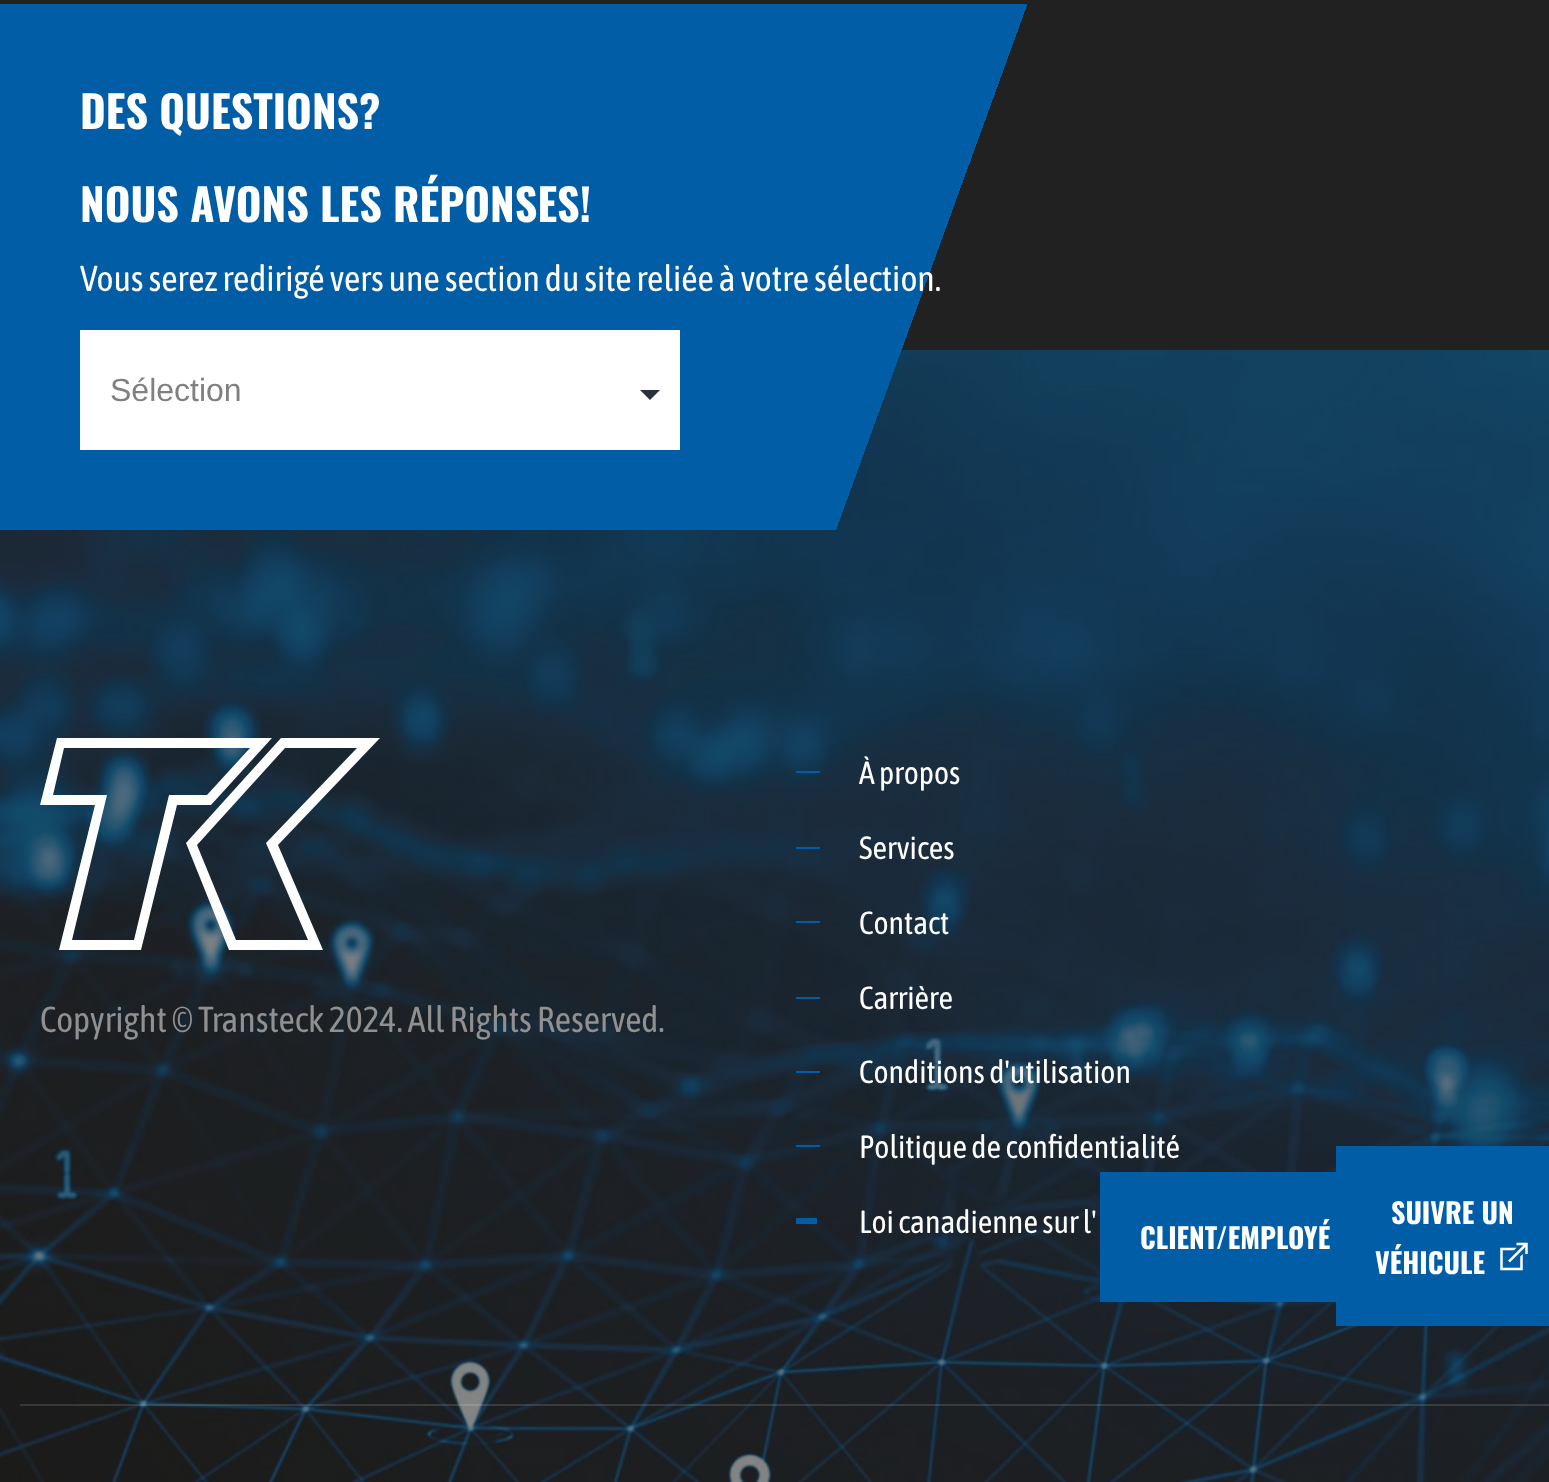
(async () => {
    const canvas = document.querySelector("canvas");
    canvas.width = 1549;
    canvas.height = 1482;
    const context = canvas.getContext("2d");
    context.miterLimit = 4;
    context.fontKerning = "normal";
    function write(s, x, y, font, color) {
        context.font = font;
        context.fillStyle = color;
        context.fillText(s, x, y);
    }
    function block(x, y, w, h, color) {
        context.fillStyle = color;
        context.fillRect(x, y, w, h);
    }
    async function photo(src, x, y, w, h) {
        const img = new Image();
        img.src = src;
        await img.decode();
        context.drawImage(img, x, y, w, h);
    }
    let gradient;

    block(0, 0, 1549, 1482, "rgb(33, 33, 33)");
    await photo("media/1.png", 0, 350, 1549, 1132);
    gradient = context.createLinearGradient(1544, 547, 6.1, -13);
    gradient.addColorStop(0.41, "rgba(0, 93, 166, 0)");
    gradient.addColorStop(0.41, "rgb(0, 93, 166)");
    context.fillStyle = gradient;
    context.fillRect(0, 4, 1027, 526);
    write("DES QUESTIONS?", 80, 129, "bold 44px Oswald", "rgb(255, 255, 255)");
    write("NOUS AVONS LES RÉPONSES!", 80, 222, "bold 44px Oswald", "rgb(255, 255, 255)");
    write("Vous serez redirigé vers une section du site reliée à votre sélection.", 80, 291, "36px Asap Condensed", "rgb(255, 255, 255)");
    block(80, 330, 600, 120, "rgb(255, 255, 255)");
    context.fillStyle = "rgb(40, 48, 61)";
    context.beginPath();
    context.moveTo(640, 390);
    context.lineTo(660, 390);
    context.lineTo(650, 400);
    context.closePath();
    context.fill();
    write("Sélection", 110, 401, "32px Liberation Sans", "rgb(128, 128, 128)");
    block(20, 1404, 1529, 2, "rgba(255, 255, 255, 0.13)");
    context.fillStyle = "rgb(255, 255, 255)";
    context.beginPath();
    context.moveTo(272, 738);
    context.lineTo(57, 738);
    context.lineTo(40, 805);
    context.lineTo(95, 805);
    context.lineTo(59, 950);
    context.lineTo(141, 950);
    context.lineTo(177, 805);
    context.lineTo(211, 805);
    context.closePath();
    context.moveTo(72, 940);
    context.lineTo(107, 795);
    context.lineTo(53, 795);
    context.lineTo(64, 748);
    context.lineTo(250, 748);
    context.lineTo(207, 795);
    context.lineTo(169, 795);
    context.lineTo(134, 940);
    context.closePath();
    context.fill();
    context.beginPath();
    context.moveTo(380, 738);
    context.lineTo(281, 738);
    context.lineTo(186, 843);
    context.lineTo(229, 950);
    context.lineTo(323, 950);
    context.lineTo(278, 845);
    context.closePath();
    context.moveTo(236, 940);
    context.lineTo(197, 845);
    context.lineTo(285, 748);
    context.lineTo(357, 748);
    context.lineTo(266, 843);
    context.lineTo(308, 940);
    context.closePath();
    context.fill();
    write("Copyright © Transteck 2024. All Rights Reserved.", 40, 1032, "36px Asap Condensed", "rgb(144, 144, 144)");
    block(796, 771, 24, 2, "rgb(0, 93, 166)");
    write("À propos", 859, 784, "32px Asap Condensed", "rgb(255, 255, 255)");
    block(796, 847, 24, 2, "rgb(0, 93, 166)");
    write("Services", 859, 859, "32px Asap Condensed", "rgb(255, 255, 255)");
    block(796, 921, 24, 2, "rgb(0, 93, 166)");
    write("Contact", 859, 934, "32px Asap Condensed", "rgb(255, 255, 255)");
    block(796, 997, 24, 2, "rgb(0, 93, 166)");
    write("Carrière", 859, 1009, "32px Asap Condensed", "rgb(255, 255, 255)");
    block(796, 1071, 24, 2, "rgb(0, 93, 166)");
    write("Conditions d'utilisation", 859, 1083, "32px Asap Condensed", "rgb(255, 255, 255)");
    block(796, 1145, 24, 2, "rgb(0, 93, 166)");
    write("Politique de confidentialité", 859, 1158, "32px Asap Condensed", "rgb(255, 255, 255)");
    block(796, 1218, 21, 6, "rgb(0, 93, 166)");
    write("Loi canadienne sur l'", 859, 1233, "32px Asap Condensed", "rgb(255, 255, 255)");
    block(1100, 1172, 236, 130, "rgb(0, 93, 166)");
    write("CLIENT/EMPLOYÉ", 1140, 1249, "bold 28px Oswald", "rgb(255, 255, 255)");
    block(1336, 1146, 213, 180, "rgb(0, 93, 166)");
    write("SUIVRE UN", 1391, 1224, "bold 28px Oswald", "rgb(255, 255, 255)");
    write("VÉHICULE", 1375, 1274, "bold 28px Oswald", "rgb(255, 255, 255)");
    await photo("media/2.png", 1500, 1242, 28, 29);
})();
